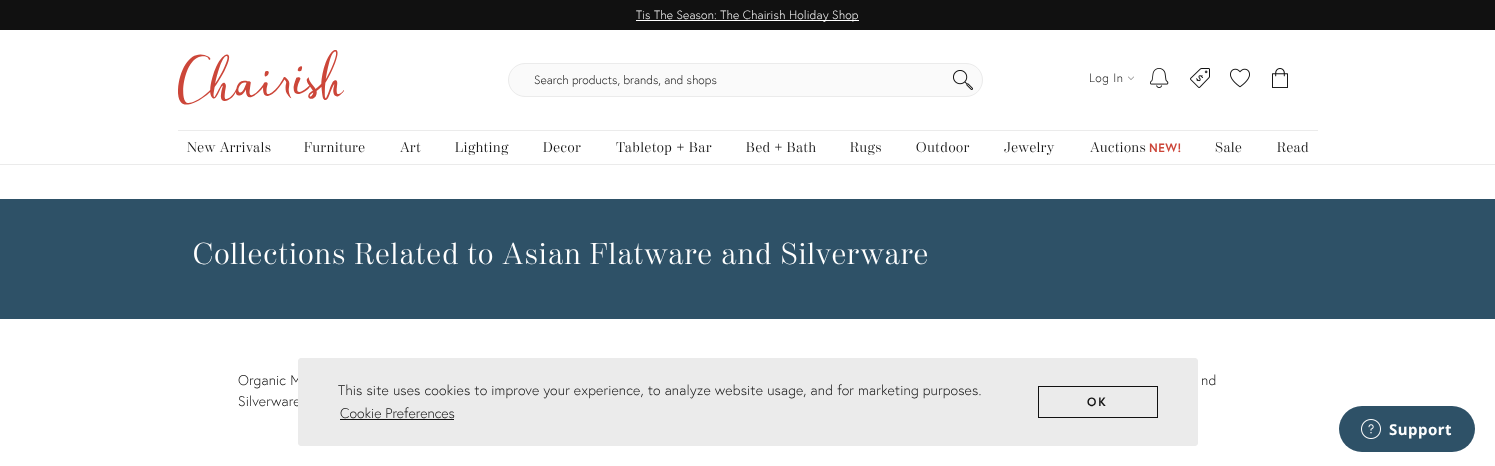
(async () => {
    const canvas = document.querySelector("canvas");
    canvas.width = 1495;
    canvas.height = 466;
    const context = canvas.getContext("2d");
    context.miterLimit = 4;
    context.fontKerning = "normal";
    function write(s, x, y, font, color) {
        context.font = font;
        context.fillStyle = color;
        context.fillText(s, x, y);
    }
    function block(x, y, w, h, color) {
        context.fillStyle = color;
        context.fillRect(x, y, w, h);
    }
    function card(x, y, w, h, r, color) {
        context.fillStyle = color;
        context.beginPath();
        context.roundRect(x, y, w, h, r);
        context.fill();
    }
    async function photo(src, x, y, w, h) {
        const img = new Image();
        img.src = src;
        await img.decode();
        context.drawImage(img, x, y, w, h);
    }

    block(0, 0, 1495, 466, "rgb(255, 255, 255)");
    block(0, 0, 1495, 30, "rgb(17, 17, 17)");
    block(636, 20, 223, 1, "rgb(255, 255, 255)");
    context.letterSpacing = "0.14px";
    write("Tis The Season: The Chairish Holiday Shop", 636, 19, "300 12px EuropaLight", "rgb(255, 255, 255)");
    block(0, 164, 1495, 1, "rgb(235, 235, 235)");
    await photo("media/1.png", 178, 50, 166, 55);
    context.fillStyle = "rgb(250, 250, 250)";
    context.beginPath();
    context.roundRect(508.5, 63.5, 474, 33, 16.5);
    context.fill();
    context.strokeStyle = "rgb(235, 235, 235)";
    context.stroke();
    context.letterSpacing = "0px";
    write("Search products, brands, and shops", 534, 84, "300 12px EuropaLight", "rgb(17, 17, 17)");
    await photo("media/2.png", 953, 70, 20, 20);
    context.letterSpacing = "0.5px";
    write("Log In", 1089, 82, "300 12px EuropaLight", "rgb(17, 17, 17)");
    await photo("media/3.png", 1128, 76, 6, 4);
    await photo("media/4.png", 1150, 68, 19, 20);
    await photo("media/5.png", 1190, 68, 20, 20);
    await photo("media/6.png", 1230, 68, 20, 20);
    await photo("media/7.png", 1272, 68, 16, 20);
    block(178, 130, 1140, 1, "rgb(235, 235, 235)");
    write("New Arrivals", 187, 152, "300 14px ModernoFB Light", "rgb(17, 17, 17)");
    context.letterSpacing = "0.6px";
    write("Furniture", 304, 152, "300 14px ModernoFB Light", "rgb(17, 17, 17)");
    write("Art", 400, 152, "300 14px ModernoFB Light", "rgb(17, 17, 17)");
    write("Lighting", 455, 152, "300 14px ModernoFB Light", "rgb(17, 17, 17)");
    write("Decor", 543, 152, "300 14px ModernoFB Light", "rgb(17, 17, 17)");
    write("Tabletop + Bar", 616, 152, "300 14px ModernoFB Light", "rgb(17, 17, 17)");
    context.letterSpacing = "0.5px";
    write("Bed + Bath", 746, 152, "300 14px ModernoFB Light", "rgb(17, 17, 17)");
    context.letterSpacing = "0.6px";
    write("Rugs", 850, 152, "300 14px ModernoFB Light", "rgb(17, 17, 17)");
    write("Outdoor", 916, 152, "300 14px ModernoFB Light", "rgb(17, 17, 17)");
    write("Jewelry", 1004, 152, "300 14px ModernoFB Light", "rgb(17, 17, 17)");
    context.letterSpacing = "0.5px";
    write("Auctions", 1090, 152, "300 14px ModernoFB Light", "rgb(17, 17, 17)");
    write("NEW!", 1149, 152, "bold 12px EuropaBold", "rgb(204, 70, 57)");
    write("Sale", 1215, 152, "300 14px ModernoFB Light", "rgb(17, 17, 17)");
    write("Read", 1277, 152, "300 14px ModernoFB Light", "rgb(17, 17, 17)");
    block(0, 199, 1495, 120, "rgb(46, 81, 103)");
    context.letterSpacing = "1.25px";
    write("Collections Related to Asian Flatware and Silverware", 193, 264, "300 30px ModernoFB Light", "rgb(255, 255, 255)");
    context.letterSpacing = "0.14px";
    write("Organic M", 238, 385, "300 14px EuropaLight", "rgb(17, 17, 17)");
    write("Silverware", 238, 406, "300 14px EuropaLight", "rgb(17, 17, 17)");
    write("nd", 1201, 385, "300 14px EuropaLight", "rgb(17, 17, 17)");
    context.fillStyle = "rgb(235, 235, 235)";
    context.beginPath();
    context.roundRect(298.5, 358.5, 899, 87, 2.5);
    context.fill();
    context.stroke();
    write("This site uses cookies to improve your experience, to analyze website usage, and for marketing purposes.", 338, 395, "300 14px EuropaLight", "rgb(17, 17, 17)");
    context.letterSpacing = "0px";
    write("Cookie Preferences", 340, 418, "300 14px EuropaLight", "rgb(17, 17, 17)");
    block(340, 419, 114, 1, "rgb(17, 17, 17)");
    context.strokeStyle = "rgb(17, 17, 17)";
    context.strokeRect(1038.5, 386.5, 119, 31);
    context.letterSpacing = "2px";
    write("OK", 1087, 406, "bold 12px EuropaBold", "rgb(17, 17, 17)");
    card(1339, 406, 136, 46, 23, "rgb(46, 81, 103)");
    await photo("media/8.png", 1361, 419, 20, 20);
    context.letterSpacing = "0.5px";
    write("Support", 1389, 435, "bold 15px Noto Sans", "rgb(255, 255, 255)");
})();
